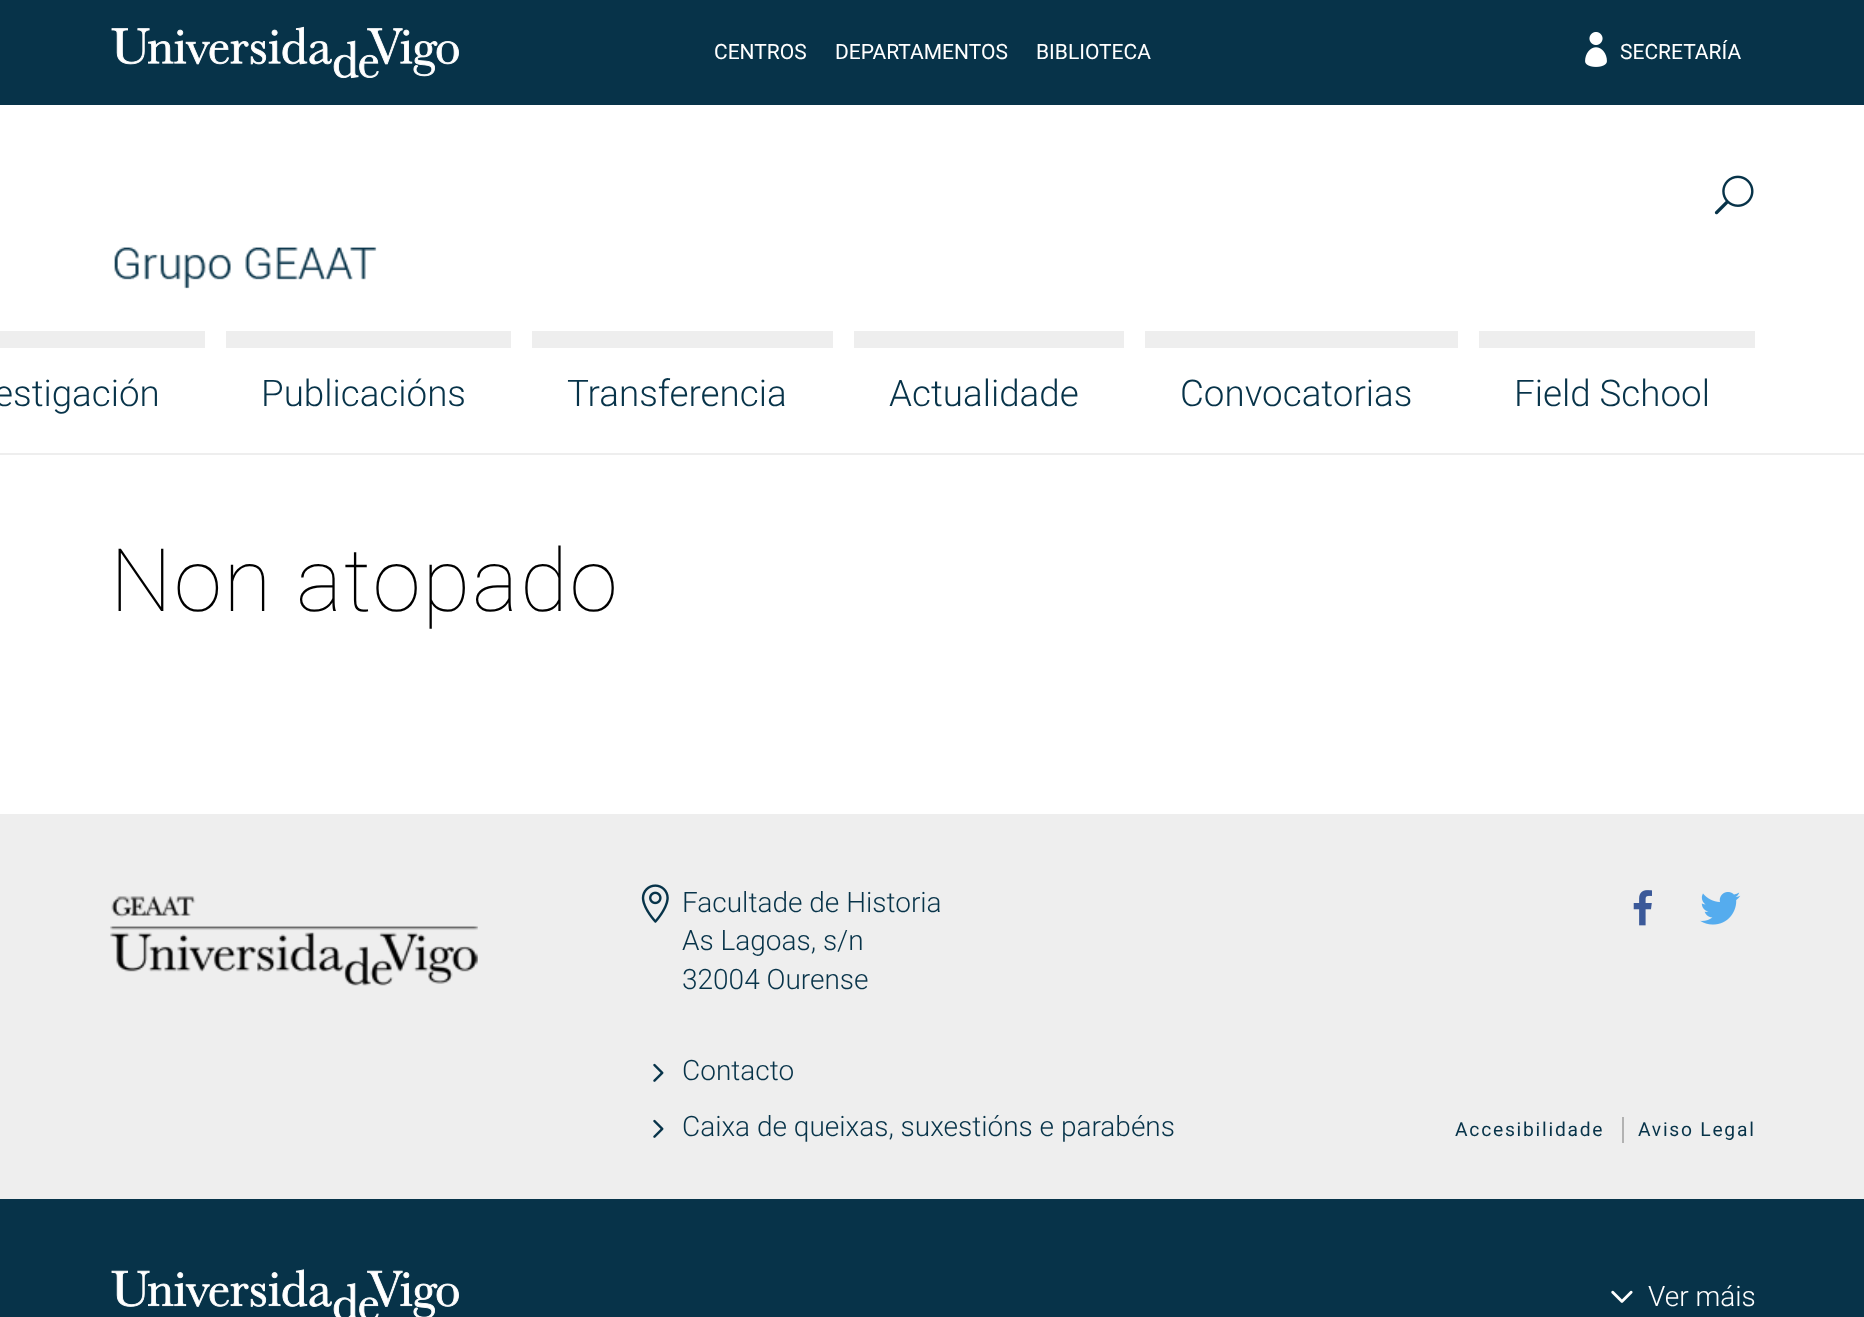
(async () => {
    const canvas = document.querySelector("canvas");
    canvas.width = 1864;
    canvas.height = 1317;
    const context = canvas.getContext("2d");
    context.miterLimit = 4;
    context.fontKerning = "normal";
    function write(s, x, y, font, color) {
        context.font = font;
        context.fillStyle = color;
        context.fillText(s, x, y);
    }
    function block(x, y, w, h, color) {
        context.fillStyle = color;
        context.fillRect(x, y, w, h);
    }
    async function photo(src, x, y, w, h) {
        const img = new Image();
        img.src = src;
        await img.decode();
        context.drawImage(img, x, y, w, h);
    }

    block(0, 0, 1864, 1317, "rgb(255, 255, 255)");
    block(0, 0, 1864, 105, "rgb(7, 51, 73)");
    await photo("media/1.png", 111, 26, 348, 53);
    write("CENTROS", 714, 59, "21px Roboto", "rgb(255, 255, 255)");
    write("DEPARTAMENTOS", 835, 59, "21px Roboto", "rgb(255, 255, 255)");
    write("BIBLIOTECA", 1036, 59, "21px Roboto", "rgb(255, 255, 255)");
    await photo("media/2.png", 1585, 32, 22, 35);
    write("SECRETARÍA", 1620, 59, "21px Roboto", "rgb(255, 255, 255)");
    block(0, 453, 1864, 2, "rgb(238, 238, 238)");
    await photo("media/3.png", 114, 247, 263, 42);
    await photo("media/4.png", 1714, 175, 40, 40);
    block(0, 331, 205, 17, "rgb(238, 238, 238)");
    write("estigación", -6, 406, "300 36.75px Roboto", "rgb(7, 51, 73)");
    block(226, 331, 285, 17, "rgb(238, 238, 238)");
    write("Publicacións", 261, 406, "300 36.75px Roboto", "rgb(7, 51, 73)");
    block(532, 331, 301, 17, "rgb(238, 238, 238)");
    write("Transferencia", 567, 406, "300 36.75px Roboto", "rgb(7, 51, 73)");
    block(854, 331, 270, 17, "rgb(238, 238, 238)");
    write("Actualidade", 889, 406, "300 36.75px Roboto", "rgb(7, 51, 73)");
    block(1145, 331, 313, 17, "rgb(238, 238, 238)");
    write("Convocatorias", 1180, 406, "300 36.75px Roboto", "rgb(7, 51, 73)");
    block(1479, 331, 276, 17, "rgb(238, 238, 238)");
    write("Field School", 1514, 406, "300 36.75px Roboto", "rgb(7, 51, 73)");
    context.letterSpacing = "1.75px";
    write("Non atopado", 110, 611, "100 87.5px Roboto", "rgb(0, 0, 0)");
    block(0, 814, 1864, 385, "rgb(238, 238, 238)");
    await photo("media/5.png", 110, 896, 368, 90);
    await photo("media/6.png", 641, 884, 28, 39);
    context.letterSpacing = "0px";
    write("Facultade de Historia", 682, 912, "300 28px Roboto", "rgb(7, 51, 73)");
    write("As Lagoas, s/n", 682, 950, "300 28px Roboto", "rgb(7, 51, 73)");
    write("32004 Ourense", 682, 989, "300 28px Roboto", "rgb(7, 51, 73)");
    await photo("media/7.png", 653, 1063, 11, 19);
    write("Contacto", 682, 1080, "300 28px Roboto", "rgb(7, 51, 73)");
    await photo("media/7.png", 653, 1119, 11, 19);
    write("Caixa de queixas, suxestións e parabéns", 682, 1136, "300 28px Roboto", "rgb(7, 51, 73)");
    await photo("media/8.png", 1633, 890, 19, 36);
    await photo("media/9.png", 1700, 892, 41, 33);
    context.letterSpacing = "1.75px";
    write("Accesibilidade", 1455, 1136, "19.25px Roboto", "rgb(7, 51, 73)");
    block(1622, 1117, 2, 26, "rgb(178, 178, 178)");
    write("Aviso Legal", 1638, 1136, "19.25px Roboto", "rgb(7, 51, 73)");
    block(0, 1199, 1864, 118, "rgb(7, 51, 73)");
    await photo("media/10.png", 111, 1269, 348, 48);
    await photo("media/11.png", 1611, 1290, 22, 13);
    context.letterSpacing = "0px";
    write("Ver máis", 1648, 1306, "300 28px Roboto", "rgb(255, 255, 255)");
})();
